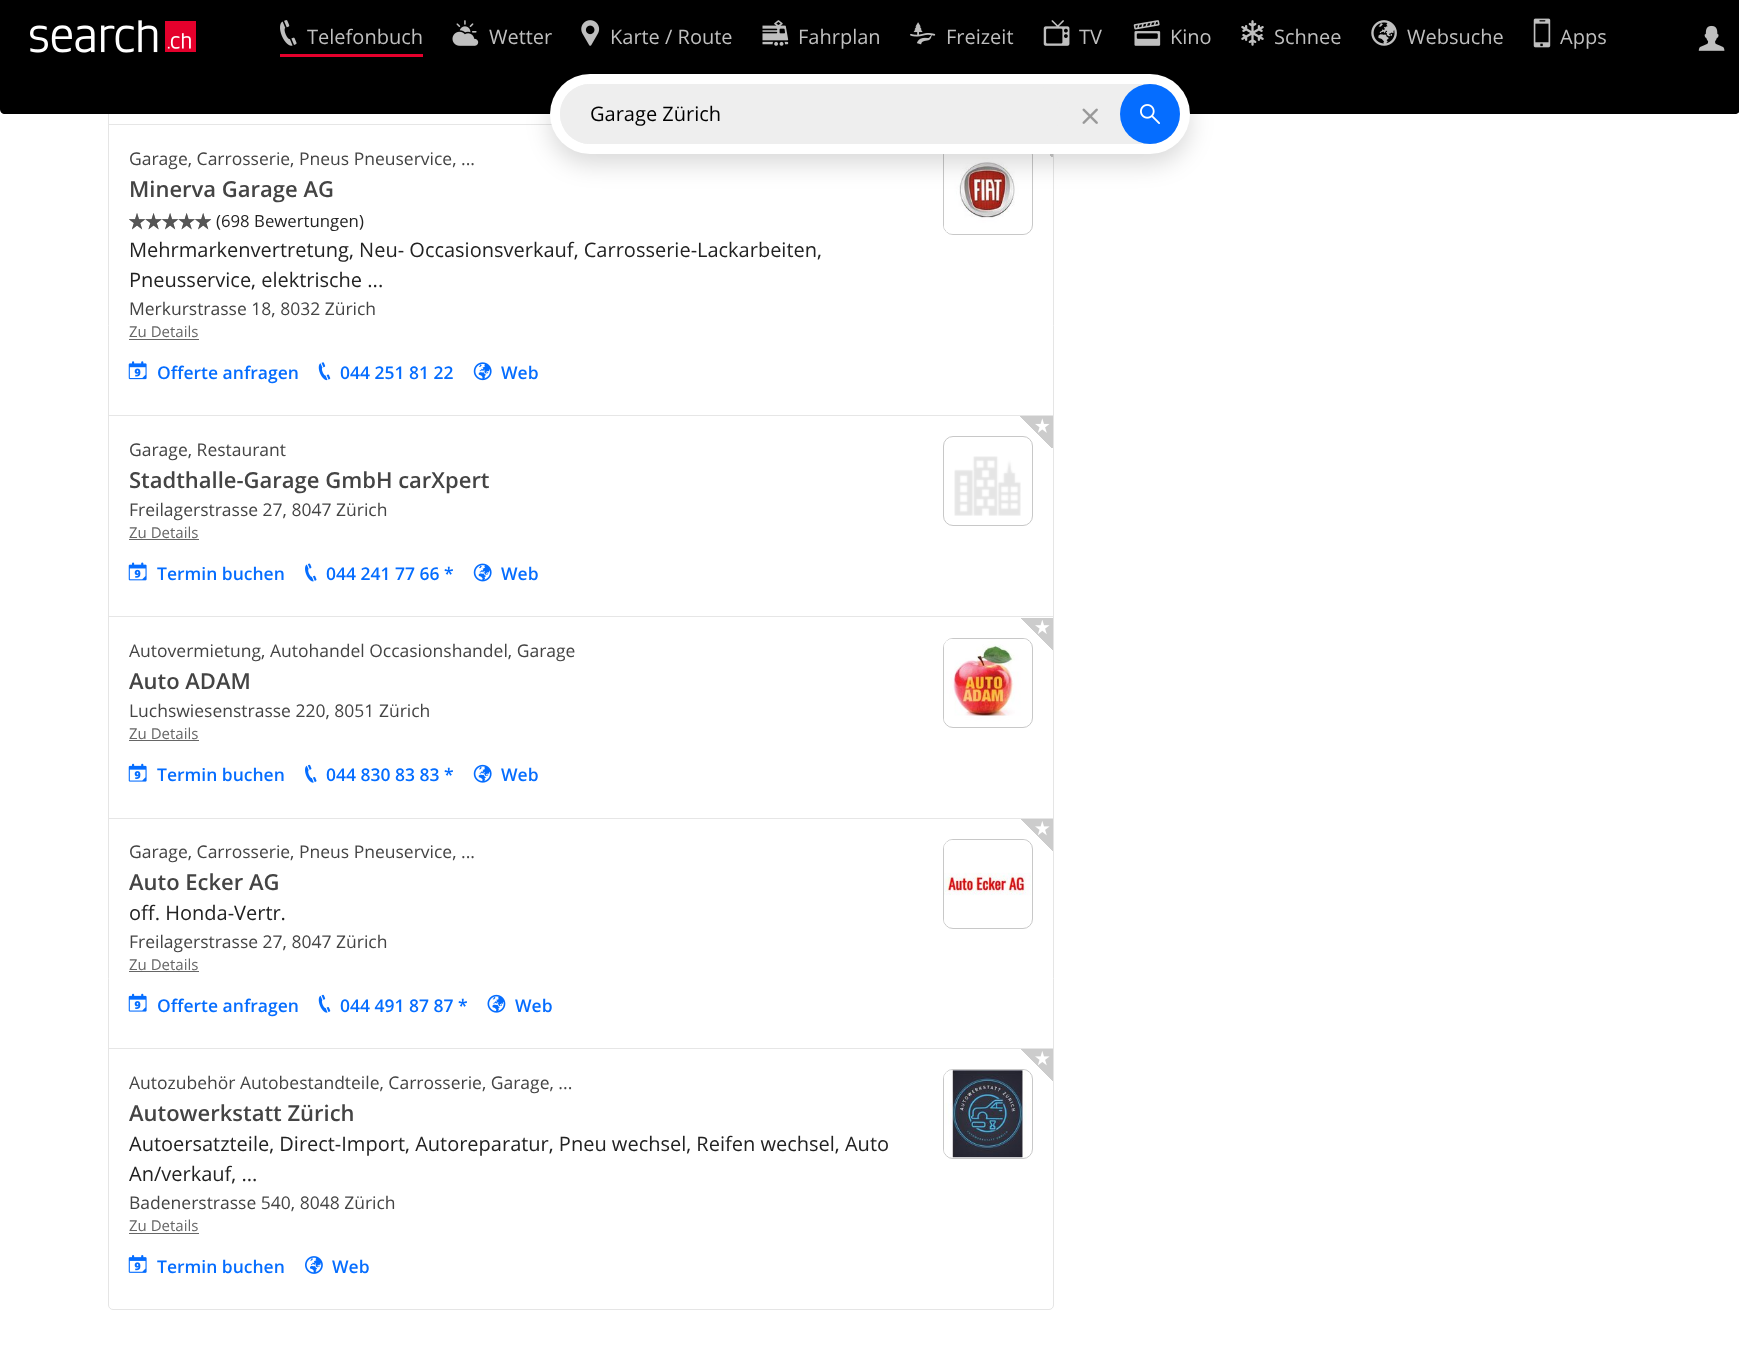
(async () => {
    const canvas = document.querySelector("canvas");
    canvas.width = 1739;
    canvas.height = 1372;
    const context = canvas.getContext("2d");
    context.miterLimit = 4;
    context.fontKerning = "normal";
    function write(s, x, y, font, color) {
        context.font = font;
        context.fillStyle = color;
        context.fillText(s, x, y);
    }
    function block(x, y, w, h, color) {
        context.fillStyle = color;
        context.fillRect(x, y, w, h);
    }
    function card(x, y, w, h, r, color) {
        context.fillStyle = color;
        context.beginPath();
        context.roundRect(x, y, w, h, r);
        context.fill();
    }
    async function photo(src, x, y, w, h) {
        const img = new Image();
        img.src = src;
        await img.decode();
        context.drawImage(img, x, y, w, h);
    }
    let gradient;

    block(0, 0, 1739, 1372, "rgb(255, 255, 255)");
    context.beginPath();
    context.roundRect(108.5, -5.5, 945, 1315, 4.5);
    context.strokeStyle = "rgb(229, 229, 229)";
    context.stroke();
    block(0, 0, 1739, 74, "rgb(0, 0, 0)");
    await photo("media/1.png", 30, 20, 166, 33);
    block(280, 54, 143, 3, "rgb(228, 0, 44)");
    await photo("media/2.png", 280, 20, 17, 26);
    write("Telefonbuch", 307, 44, "20px Open Sans", "rgb(191, 191, 191)");
    await photo("media/3.png", 452, 20, 27, 26);
    write("Wetter", 489, 44, "20px Open Sans", "rgb(191, 191, 191)");
    await photo("media/4.png", 581, 20, 19, 26);
    write("Karte / Route", 610, 44, "20px Open Sans", "rgb(191, 191, 191)");
    await photo("media/5.png", 762, 20, 27, 26);
    write("Fahrplan", 798, 44, "20px Open Sans", "rgb(191, 191, 191)");
    await photo("media/6.png", 910, 22, 26, 23);
    write("Freizeit", 946, 44, "20px Open Sans", "rgb(191, 191, 191)");
    await photo("media/7.png", 1043, 20, 27, 26);
    write("TV", 1079, 44, "20px Open Sans", "rgb(191, 191, 191)");
    await photo("media/8.png", 1133, 20, 28, 26);
    write("Kino", 1170, 44, "20px Open Sans", "rgb(191, 191, 191)");
    await photo("media/9.png", 1241, 20, 23, 26);
    write("Schnee", 1274, 44, "20px Open Sans", "rgb(191, 191, 191)");
    await photo("media/10.png", 1371, 20, 26, 26);
    write("Websuche", 1407, 44, "20px Open Sans", "rgb(191, 191, 191)");
    await photo("media/11.png", 1533, 18, 18, 30);
    write("Apps", 1560, 44, "20px Open Sans", "rgb(191, 191, 191)");
    await photo("media/12.png", 1698, 25, 27, 26);
    context.fillStyle = "rgb(0, 0, 0)";
    context.beginPath();
    context.moveTo(0, 74);
    context.lineTo(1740, 74);
    context.lineTo(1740, 109);
    context.bezierCurveTo(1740, 112, 1738, 114, 1735, 114);
    context.lineTo(5, 114);
    context.bezierCurveTo(2, 114, 0, 112, 0, 109);
    context.closePath();
    context.fill();
    block(109, 124, 443, 1, "rgb(230, 230, 230)");
    context.beginPath();
    context.roundRect(943.5, 145.5, 89, 89, 9.5);
    context.strokeStyle = "rgb(200, 200, 200)";
    context.stroke();
    await photo("media/20.png", 944, 154, 82, 80);
    gradient = context.createLinearGradient(1020, 158, 1053, 125);
    gradient.addColorStop(0, "rgba(255, 255, 255, 0)");
    gradient.addColorStop(0.5, "rgba(204, 204, 204, 0)");
    gradient.addColorStop(0.5, "rgb(204, 204, 204)");
    gradient.addColorStop(1, "rgb(204, 204, 204)");
    context.fillStyle = gradient;
    context.fillRect(1050, 154, 3, 3);
    context.fillStyle = "rgba(0, 0, 0, 0.15)";
    context.filter = "blur(12.5px)";
    context.beginPath();
    context.roundRect(550, 84, 640, 80, 40);
    context.fill();
    context.filter = "none";
    card(550, 74, 640, 80, 40, "rgb(255, 255, 255)");
    card(560, 84, 620, 60, 30, "rgb(238, 238, 238)");
    card(560, 84, 500, 60, 30, "rgb(238, 238, 238)");
    write("Garage Zürich", 590, 121, "20px Open Sans", "rgb(0, 0, 0)");
    await photo("media/13.png", 1082, 108, 16, 16);
    context.fillStyle = "rgb(5, 109, 255)";
    context.beginPath();
    context.arc(1150, 114, 30, 0, Math.PI * 2);
    context.fill();
    await photo("media/14.png", 1140, 104, 20, 20);
    write("Garage, Carrosserie, Pneus Pneuservice, ...", 129, 165, "17.5px Open Sans", "rgb(68, 68, 68)");
    write("Minerva Garage AG", 129, 197, "600 22px Open Sans", "rgb(68, 68, 68)");
    await photo("media/15.png", 129, 213, 83, 17);
    await photo("media/16.png", 129, 213, 82, 17);
    write("(698 Bewertungen)", 216, 227, "16.75px Open Sans", "rgb(34, 34, 34)");
    write("Mehrmarkenvertretung, Neu- Occasionsverkauf, Carrosserie-Lackarbeiten,", 129, 257, "20px Open Sans", "rgb(34, 34, 34)");
    write("Pneusservice, elektrische ...", 129, 287, "20px Open Sans", "rgb(34, 34, 34)");
    write("Merkurstrasse 18, 8032 Zürich", 129, 315, "17.5px Open Sans", "rgb(68, 68, 68)");
    write("Zu Details", 129, 337, "15px Open Sans", "rgb(102, 102, 102)");
    block(129, 339, 70, 1, "rgb(102, 102, 102)");
    await photo("media/17.png", 128, 361, 19, 19);
    write("Offerte anfragen", 157, 379, "600 17.5px Open Sans", "rgb(5, 109, 255)");
    await photo("media/18.png", 318, 362, 13, 19);
    write("044 251 81 22", 340, 379, "600 17.5px Open Sans", "rgb(5, 109, 255)");
    await photo("media/19.png", 473, 362, 19, 19);
    write("Web", 501, 379, "600 17.5px Open Sans", "rgb(5, 109, 255)");
    block(109, 415, 944, 1, "rgb(230, 230, 230)");
    context.beginPath();
    context.roundRect(943.5, 436.5, 89, 89, 9.5);
    context.stroke();
    gradient = context.createLinearGradient(1020, 449, 1053, 416);
    gradient.addColorStop(0, "rgba(255, 255, 255, 0)");
    gradient.addColorStop(0.5, "rgba(204, 204, 204, 0)");
    gradient.addColorStop(0.5, "rgb(204, 204, 204)");
    gradient.addColorStop(1, "rgb(204, 204, 204)");
    context.fillStyle = gradient;
    context.fillRect(1020, 416, 33, 32);
    await photo("media/21.png", 1035, 418, 15, 15);
    write("Garage, Restaurant", 129, 456, "17.5px Open Sans", "rgb(68, 68, 68)");
    write("Stadthalle-Garage GmbH carXpert", 129, 488, "600 22px Open Sans", "rgb(68, 68, 68)");
    write("Freilagerstrasse 27, 8047 Zürich", 129, 516, "17.5px Open Sans", "rgb(68, 68, 68)");
    write("Zu Details", 129, 538, "15px Open Sans", "rgb(102, 102, 102)");
    block(129, 539, 70, 1, "rgb(102, 102, 102)");
    await photo("media/22.png", 128, 562, 19, 19);
    write("Termin buchen", 157, 580, "600 17.5px Open Sans", "rgb(5, 109, 255)");
    await photo("media/23.png", 305, 563, 12, 19);
    write("044 241 77 66 *", 326, 580, "600 17.5px Open Sans", "rgb(5, 109, 255)");
    await photo("media/24.png", 473, 563, 19, 19);
    write("Web", 501, 580, "600 17.5px Open Sans", "rgb(5, 109, 255)");
    await photo("media/25.png", 954, 456, 67, 60);
    block(109, 616, 944, 1, "rgb(230, 230, 230)");
    context.beginPath();
    context.roundRect(943.5, 638.5, 89, 89, 9.5);
    context.stroke();
    await photo("media/30.png", 944, 639, 86, 87);
    gradient = context.createLinearGradient(1020, 650, 1053, 618);
    gradient.addColorStop(0, "rgba(255, 255, 255, 0)");
    gradient.addColorStop(0.5, "rgba(204, 204, 204, 0)");
    gradient.addColorStop(0.5, "rgb(204, 204, 204)");
    gradient.addColorStop(1, "rgb(204, 204, 204)");
    context.fillStyle = gradient;
    context.fillRect(1021, 618, 32, 32);
    await photo("media/26.png", 1035, 620, 15, 14);
    write("Autovermietung, Autohandel Occasionshandel, Garage", 129, 657, "17.5px Open Sans", "rgb(68, 68, 68)");
    write("Auto ADAM", 129, 689, "600 22px Open Sans", "rgb(68, 68, 68)");
    write("Luchswiesenstrasse 220, 8051 Zürich", 129, 717, "17.5px Open Sans", "rgb(68, 68, 68)");
    write("Zu Details", 129, 739, "15px Open Sans", "rgb(102, 102, 102)");
    block(129, 740, 70, 1, "rgb(102, 102, 102)");
    await photo("media/27.png", 128, 763, 19, 19);
    write("Termin buchen", 157, 781, "600 17.5px Open Sans", "rgb(5, 109, 255)");
    await photo("media/28.png", 305, 764, 12, 19);
    write("044 830 83 83 *", 326, 781, "600 17.5px Open Sans", "rgb(5, 109, 255)");
    await photo("media/29.png", 473, 764, 19, 19);
    write("Web", 501, 781, "600 17.5px Open Sans", "rgb(5, 109, 255)");
    block(109, 818, 944, 1, "rgb(230, 230, 230)");
    context.beginPath();
    context.roundRect(943.5, 839.5, 89, 89, 9.5);
    context.stroke();
    await photo("media/34.png", 944, 840, 87, 87);
    gradient = context.createLinearGradient(1020, 851, 1053, 819);
    gradient.addColorStop(0, "rgba(255, 255, 255, 0)");
    gradient.addColorStop(0.5, "rgba(204, 204, 204, 0)");
    gradient.addColorStop(0.5, "rgb(204, 204, 204)");
    gradient.addColorStop(1, "rgb(204, 204, 204)");
    context.fillStyle = gradient;
    context.fillRect(1021, 819, 32, 32);
    await photo("media/31.png", 1035, 821, 15, 15);
    write("Garage, Carrosserie, Pneus Pneuservice, ...", 129, 858, "17.5px Open Sans", "rgb(68, 68, 68)");
    write("Auto Ecker AG", 129, 890, "600 22px Open Sans", "rgb(68, 68, 68)");
    write("off. Honda-Vertr.", 129, 920, "20px Open Sans", "rgb(34, 34, 34)");
    write("Freilagerstrasse 27, 8047 Zürich", 129, 948, "17.5px Open Sans", "rgb(68, 68, 68)");
    write("Zu Details", 129, 970, "15px Open Sans", "rgb(102, 102, 102)");
    block(129, 971, 70, 1, "rgb(102, 102, 102)");
    await photo("media/27.png", 128, 993, 19, 19);
    write("Offerte anfragen", 157, 1012, "600 17.5px Open Sans", "rgb(5, 109, 255)");
    await photo("media/32.png", 318, 994, 13, 19);
    write("044 491 87 87 *", 340, 1012, "600 17.5px Open Sans", "rgb(5, 109, 255)");
    await photo("media/33.png", 487, 994, 19, 19);
    write("Web", 515, 1012, "600 17.5px Open Sans", "rgb(5, 109, 255)");
    block(109, 1048, 944, 1, "rgb(230, 230, 230)");
    context.beginPath();
    context.roundRect(943.5, 1069.5, 89, 89, 9.5);
    context.stroke();
    await photo("media/37.png", 944, 1070, 87, 88);
    gradient = context.createLinearGradient(1020, 1081, 1053, 1049);
    gradient.addColorStop(0, "rgba(255, 255, 255, 0)");
    gradient.addColorStop(0.5, "rgba(204, 204, 204, 0)");
    gradient.addColorStop(0.5, "rgb(204, 204, 204)");
    gradient.addColorStop(1, "rgb(204, 204, 204)");
    context.fillStyle = gradient;
    context.fillRect(1021, 1049, 32, 32);
    await photo("media/31.png", 1035, 1051, 15, 15);
    write("Autozubehör Autobestandteile, Carrosserie, Garage, ...", 129, 1089, "17.5px Open Sans", "rgb(68, 68, 68)");
    write("Autowerkstatt Zürich", 129, 1121, "600 22px Open Sans", "rgb(68, 68, 68)");
    write("Autoersatzteile, Direct-Import, Autoreparatur, Pneu wechsel, Reifen wechsel, Auto", 129, 1151, "20px Open Sans", "rgb(34, 34, 34)");
    write("An/verkauf, ...", 129, 1181, "20px Open Sans", "rgb(34, 34, 34)");
    write("Badenerstrasse 540, 8048 Zürich", 129, 1209, "17.5px Open Sans", "rgb(68, 68, 68)");
    write("Zu Details", 129, 1231, "15px Open Sans", "rgb(102, 102, 102)");
    block(129, 1233, 70, 1, "rgb(102, 102, 102)");
    await photo("media/35.png", 128, 1255, 19, 18);
    write("Termin buchen", 157, 1273, "600 17.5px Open Sans", "rgb(5, 109, 255)");
    await photo("media/36.png", 305, 1256, 18, 18);
    write("Web", 332, 1273, "600 17.5px Open Sans", "rgb(5, 109, 255)");
})();
